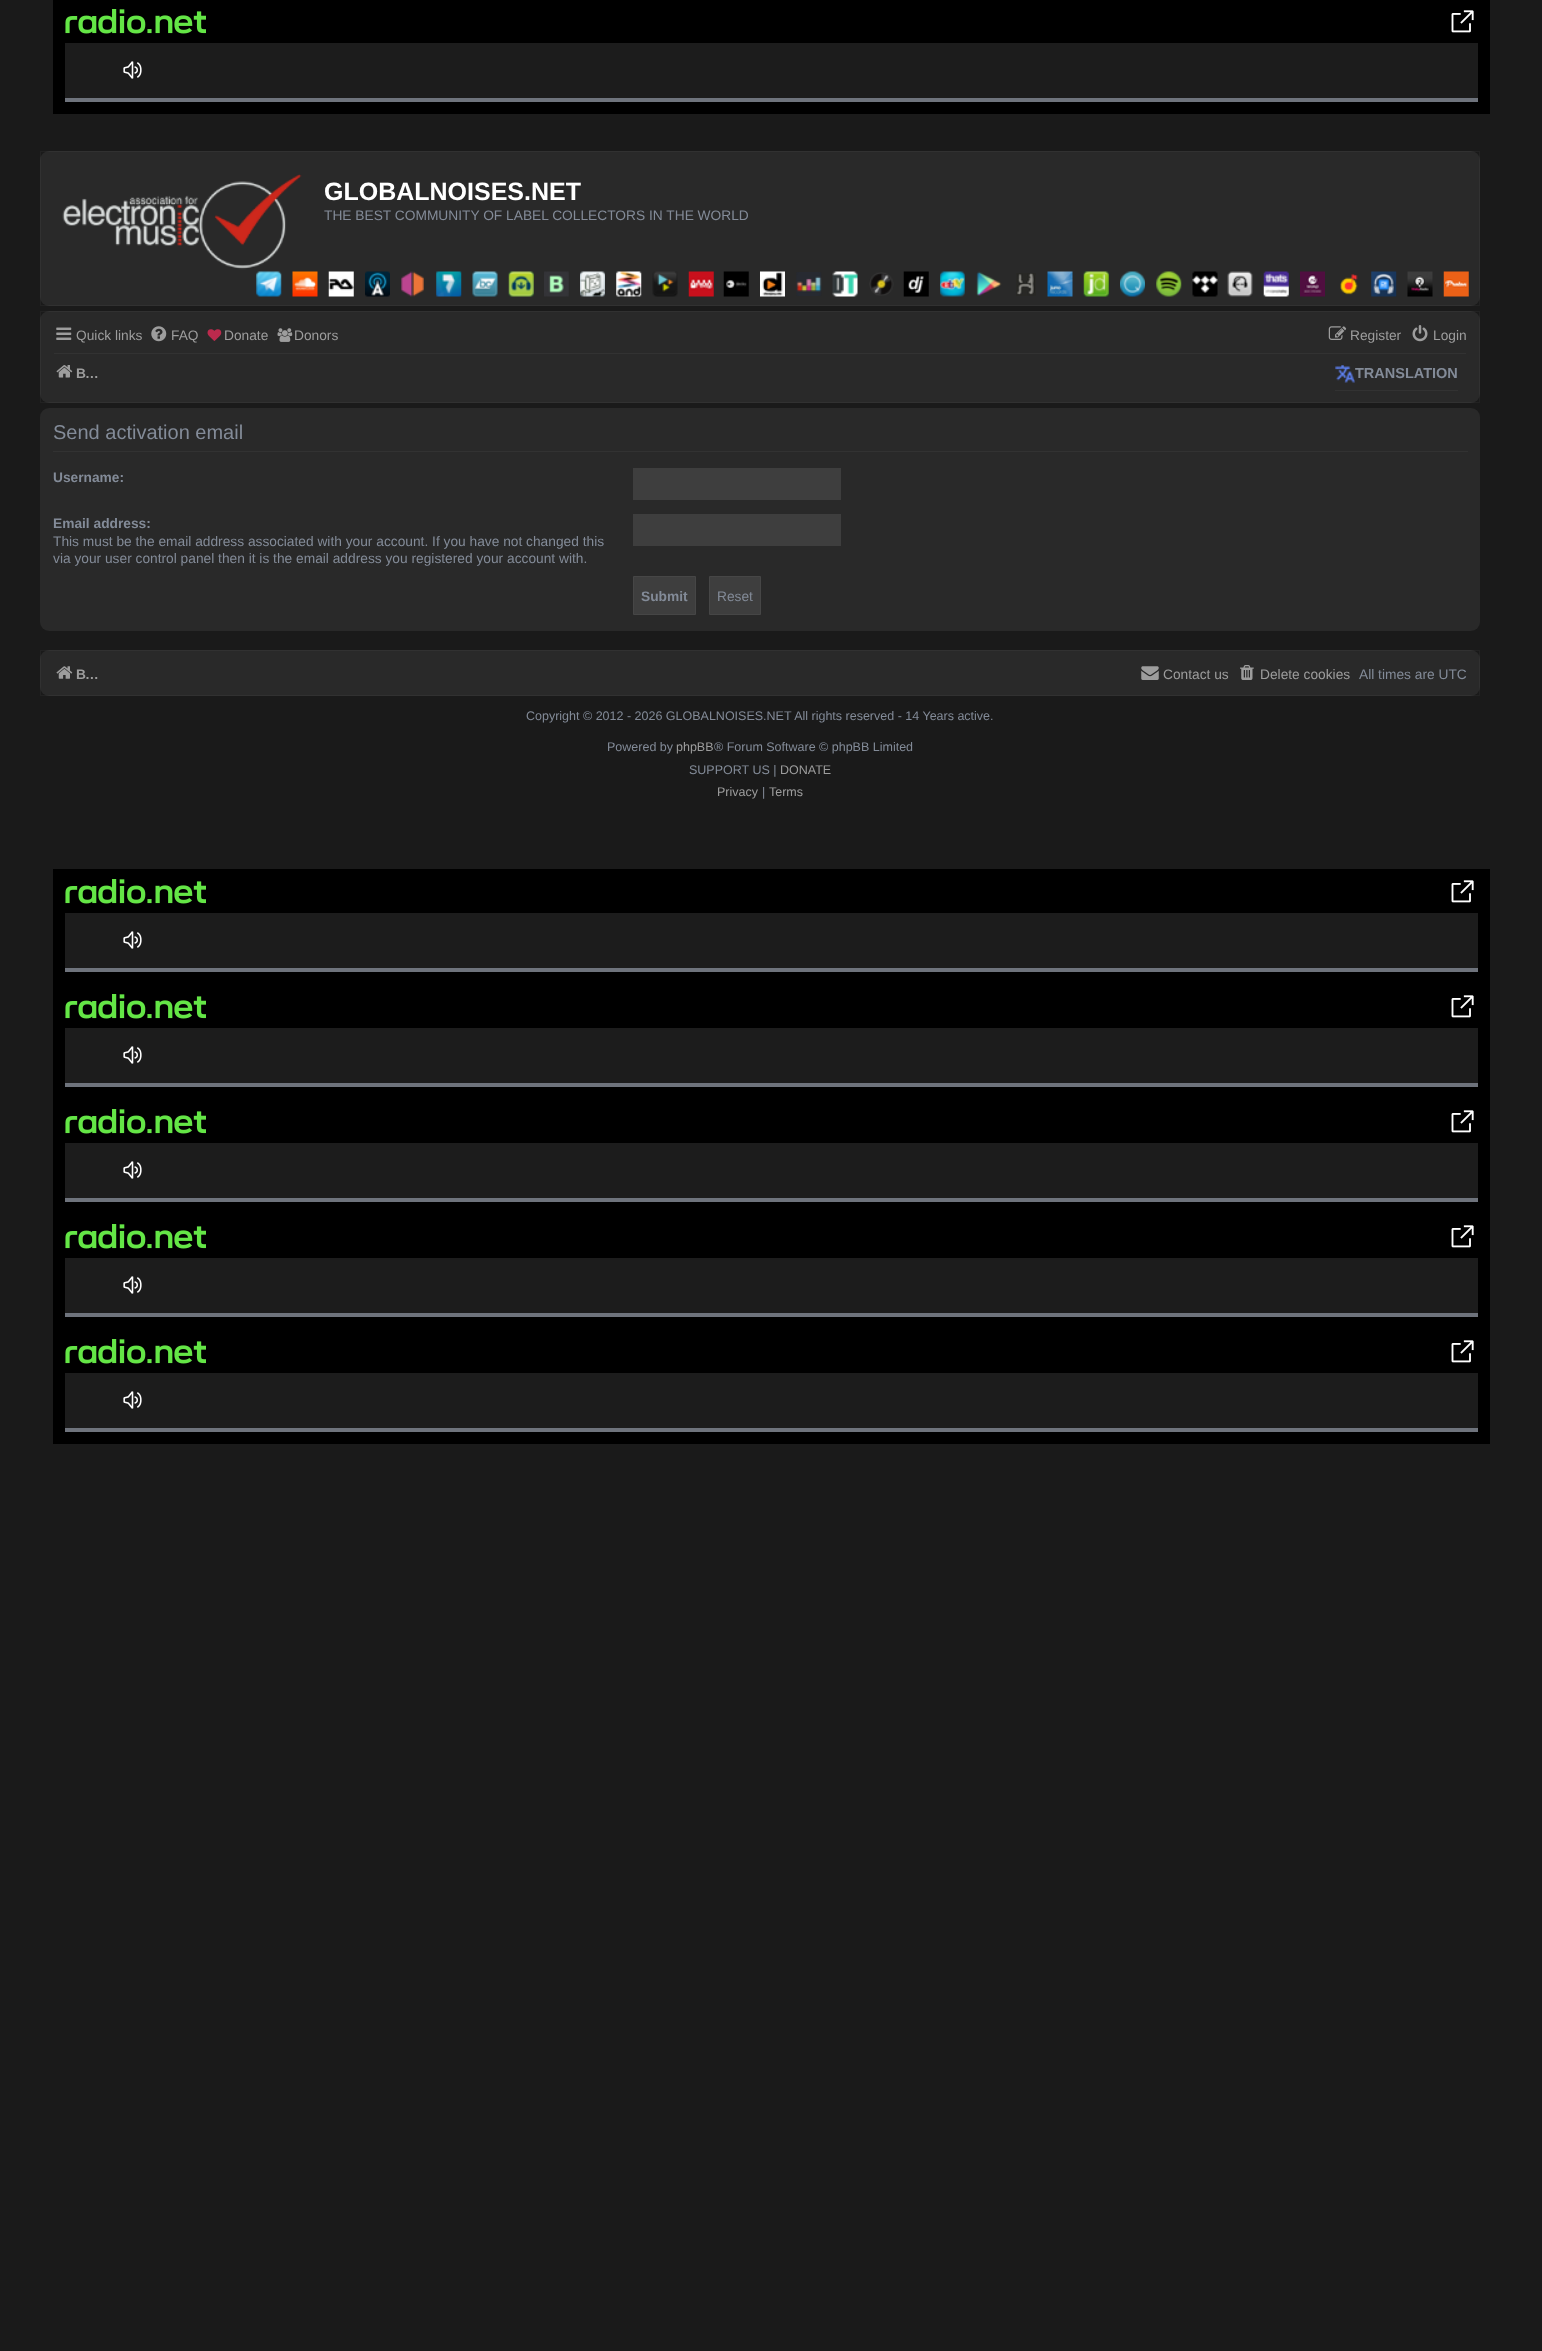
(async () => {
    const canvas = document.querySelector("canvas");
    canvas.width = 1542;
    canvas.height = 2351;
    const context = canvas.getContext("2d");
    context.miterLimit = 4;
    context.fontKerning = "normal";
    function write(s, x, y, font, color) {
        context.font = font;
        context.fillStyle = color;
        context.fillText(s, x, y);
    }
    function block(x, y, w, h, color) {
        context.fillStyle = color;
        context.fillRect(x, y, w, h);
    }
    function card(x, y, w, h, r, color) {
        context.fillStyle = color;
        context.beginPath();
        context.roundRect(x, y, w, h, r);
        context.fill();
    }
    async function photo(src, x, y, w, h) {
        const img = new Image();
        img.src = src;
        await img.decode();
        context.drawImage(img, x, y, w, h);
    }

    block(0, 0, 1542, 2351, "rgb(26, 26, 26)");
    block(53, 0, 1437, 114, "rgb(0, 0, 0)");
    await photo("media/1.png", 65, 9, 141, 25);
    await photo("media/2.png", 1451, 10, 23, 23);
    block(65, 43, 1413, 55, "rgb(28, 28, 28)");
    await photo("media/3.png", 123, 61, 19, 18);
    block(65, 98, 1413, 4, "rgb(110, 115, 124)");
    card(40, 151, 1440, 155, 9, "rgb(41, 41, 41)");
    context.strokeStyle = "rgba(255, 255, 255, 0.04)";
    context.strokeRect(40.5, 151.5, 1439, 154);
    await photo("media/4.png", 62, 174, 240, 96);
    write("GLOBALNOISES.NET", 324, 200, "bold 25px Liberation Sans", "rgb(255, 255, 255)");
    write("THE BEST COMMUNITY OF LABEL COLLECTORS IN THE WORLD", 324, 220, "13.75px Liberation Sans", "rgb(131, 139, 152)");
    await photo("media/5.png", 256, 271, 26, 26);
    await photo("media/6.png", 292, 271, 26, 26);
    await photo("media/7.png", 328, 271, 26, 26);
    await photo("media/8.png", 365, 271, 25, 26);
    await photo("media/9.png", 401, 271, 23, 26);
    await photo("media/10.png", 436, 271, 26, 26);
    await photo("media/11.png", 472, 271, 26, 26);
    await photo("media/12.png", 508, 271, 26, 26);
    await photo("media/13.png", 544, 271, 25, 26);
    await photo("media/14.png", 580, 271, 25, 26);
    await photo("media/15.png", 616, 271, 26, 26);
    await photo("media/16.png", 652, 271, 26, 26);
    await photo("media/17.png", 688, 271, 26, 26);
    await photo("media/18.png", 723, 271, 26, 26);
    await photo("media/19.png", 760, 271, 25, 26);
    await photo("media/20.png", 796, 272, 26, 24);
    await photo("media/21.png", 832, 271, 26, 26);
    await photo("media/22.png", 869, 272, 25, 24);
    await photo("media/23.png", 903, 271, 26, 26);
    await photo("media/24.png", 940, 271, 25, 26);
    await photo("media/25.png", 976, 271, 26, 25);
    await photo("media/26.png", 1016, 273, 20, 23);
    await photo("media/27.png", 1047, 271, 26, 26);
    await photo("media/28.png", 1083, 271, 26, 26);
    await photo("media/29.png", 1120, 271, 25, 26);
    await photo("media/30.png", 1156, 271, 26, 26);
    await photo("media/31.png", 1192, 271, 26, 26);
    await photo("media/32.png", 1227, 271, 26, 26);
    await photo("media/33.png", 1263, 271, 26, 26);
    await photo("media/34.png", 1300, 271, 25, 26);
    await photo("media/35.png", 1340, 274, 18, 21);
    await photo("media/36.png", 1371, 271, 26, 26);
    await photo("media/37.png", 1407, 271, 26, 26);
    await photo("media/38.png", 1443, 271, 26, 26);
    card(40, 311, 1440, 92, 9, "rgb(41, 41, 41)");
    context.strokeRect(40.5, 311.5, 1439, 91);
    await photo("media/39.png", 56, 327, 16, 13);
    write("Quick links", 76, 340, "13.75px Liberation Sans", "rgb(157, 157, 157)");
    await photo("media/40.png", 151, 326, 16, 16);
    write("FAQ", 171, 340, "13.75px Liberation Sans", "rgb(157, 157, 157)");
    await photo("media/41.png", 207, 329, 15, 12);
    write("Donate", 224, 340, "13.75px Liberation Sans", "rgb(157, 157, 157)");
    await photo("media/42.png", 277, 328, 16, 14);
    write("Donors", 294, 340, "13.75px Liberation Sans", "rgb(157, 157, 157)");
    await photo("media/43.png", 1328, 326, 19, 14);
    write("Register", 1350, 340, "13.75px Liberation Sans", "rgb(157, 157, 157)");
    await photo("media/44.png", 1412, 325, 16, 17);
    write("Login", 1433, 340, "13.75px Liberation Sans", "rgb(157, 157, 157)");
    block(54, 353, 1412, 1, "rgb(50, 50, 50)");
    await photo("media/45.png", 56, 365, 17, 13);
    context.letterSpacing = "-1px";
    write("B…", 76, 378, "bold 13.75px Liberation Sans", "rgb(157, 157, 157)");
    block(1335, 390, 123, 1, "rgb(50, 50, 50)");
    await photo("media/46.png", 1335, 365, 20, 18);
    context.letterSpacing = "0px";
    write("TRANSLATION", 1355, 378, "bold 14.5px Liberation Sans", "rgb(131, 139, 152)");
    card(40, 408, 1440, 223, 9, "rgb(41, 41, 41)");
    block(53, 451, 1415, 1, "rgb(50, 50, 50)");
    write("Send activation email", 53, 439, "20px Liberation Sans", "rgb(131, 139, 152)");
    write("Username:", 53, 482, "bold 13.75px Liberation Sans", "rgb(131, 139, 152)");
    block(633, 468, 208, 32, "rgb(62, 62, 62)");
    write("Email address:", 53, 528, "bold 13.75px Liberation Sans", "rgb(131, 139, 152)");
    write("This must be the email address associated with your account. If you have not changed this", 53, 546, "13.75px Liberation Sans", "rgb(131, 139, 152)");
    write("via your user control panel then it is the email address you registered your account with.", 53, 563, "13.75px Liberation Sans", "rgb(131, 139, 152)");
    block(633, 514, 208, 32, "rgb(62, 62, 62)");
    context.beginPath();
    context.rect(633.5, 576.5, 62, 38);
    context.fill();
    context.strokeStyle = "rgb(70, 70, 70)";
    context.stroke();
    write("Submit", 641, 601, "bold 13.75px Liberation Sans", "rgb(131, 139, 152)");
    context.fillStyle = "rgb(62, 62, 62)";
    context.beginPath();
    context.rect(709.5, 576.5, 51, 38);
    context.fill();
    context.stroke();
    write("Reset", 717, 601, "13.75px Liberation Sans", "rgb(131, 139, 152)");
    card(40, 650, 1440, 46, 9, "rgb(41, 41, 41)");
    context.strokeStyle = "rgba(255, 255, 255, 0.04)";
    context.strokeRect(40.5, 650.5, 1439, 45);
    await photo("media/47.png", 56, 666, 17, 13);
    context.letterSpacing = "-1px";
    write("B…", 76, 679, "bold 13.75px Liberation Sans", "rgb(157, 157, 157)");
    await photo("media/48.png", 1141, 666, 18, 14);
    context.letterSpacing = "0px";
    write("Contact us", 1163, 679, "13.75px Liberation Sans", "rgb(157, 157, 157)");
    await photo("media/49.png", 1240, 665, 14, 15);
    write("Delete cookies", 1260, 679, "13.75px Liberation Sans", "rgb(157, 157, 157)");
    write("All times are UTC", 1359, 679, "13.75px Liberation Sans", "rgb(131, 139, 152)");
    write("Copyright © 2012 - 2026 GLOBALNOISES.NET All rights reserved - 14 Years active.", 526, 720, "12.5px Liberation Sans", "rgb(131, 139, 152)");
    write("Powered by", 607, 751, "12.5px Liberation Sans", "rgb(131, 139, 152)");
    write("phpBB", 676, 751, "12.5px Liberation Sans", "rgb(157, 157, 157)");
    write("® Forum Software © phpBB Limited", 714, 751, "12.5px Liberation Sans", "rgb(131, 139, 152)");
    write("SUPPORT US |", 689, 774, "12.5px Liberation Sans", "rgb(131, 139, 152)");
    write("DONATE", 780, 774, "12.5px Liberation Sans", "rgb(157, 157, 157)");
    write("Privacy", 717, 796, "12.5px Liberation Sans", "rgb(157, 157, 157)");
    write("|", 762, 796, "12.5px Liberation Sans", "rgb(131, 139, 152)");
    write("Terms", 769, 796, "12.5px Liberation Sans", "rgb(157, 157, 157)");
    block(53, 869, 1437, 575, "rgb(0, 0, 0)");
    await photo("media/1.png", 65, 879, 141, 25);
    await photo("media/2.png", 1451, 880, 23, 23);
    block(65, 913, 1413, 55, "rgb(28, 28, 28)");
    await photo("media/3.png", 123, 931, 19, 18);
    block(65, 968, 1413, 4, "rgb(110, 115, 124)");
    await photo("media/1.png", 65, 994, 141, 25);
    await photo("media/2.png", 1451, 995, 23, 23);
    block(65, 1028, 1413, 55, "rgb(28, 28, 28)");
    await photo("media/3.png", 123, 1046, 19, 18);
    block(65, 1083, 1413, 4, "rgb(110, 115, 124)");
    await photo("media/1.png", 65, 1109, 141, 25);
    await photo("media/2.png", 1451, 1110, 23, 23);
    block(65, 1143, 1413, 55, "rgb(28, 28, 28)");
    await photo("media/3.png", 123, 1161, 19, 18);
    block(65, 1198, 1413, 4, "rgb(110, 115, 124)");
    await photo("media/1.png", 65, 1224, 141, 25);
    await photo("media/2.png", 1451, 1225, 23, 23);
    block(65, 1258, 1413, 55, "rgb(28, 28, 28)");
    await photo("media/3.png", 123, 1276, 19, 18);
    block(65, 1313, 1413, 4, "rgb(110, 115, 124)");
    await photo("media/1.png", 65, 1339, 141, 25);
    await photo("media/2.png", 1451, 1340, 23, 23);
    block(65, 1373, 1413, 55, "rgb(28, 28, 28)");
    await photo("media/3.png", 123, 1391, 19, 18);
    block(65, 1428, 1413, 4, "rgb(110, 115, 124)");
})();
